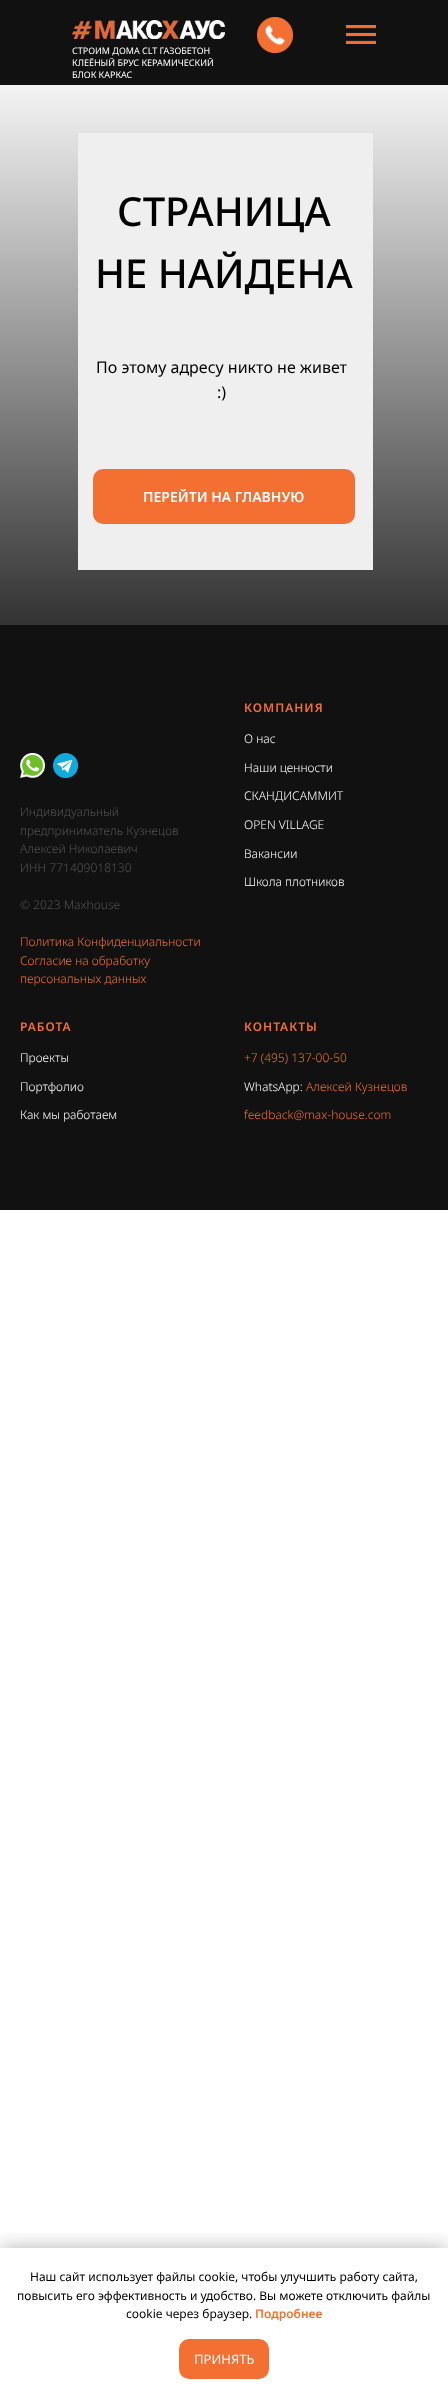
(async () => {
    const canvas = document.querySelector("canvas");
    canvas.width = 448;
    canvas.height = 2399;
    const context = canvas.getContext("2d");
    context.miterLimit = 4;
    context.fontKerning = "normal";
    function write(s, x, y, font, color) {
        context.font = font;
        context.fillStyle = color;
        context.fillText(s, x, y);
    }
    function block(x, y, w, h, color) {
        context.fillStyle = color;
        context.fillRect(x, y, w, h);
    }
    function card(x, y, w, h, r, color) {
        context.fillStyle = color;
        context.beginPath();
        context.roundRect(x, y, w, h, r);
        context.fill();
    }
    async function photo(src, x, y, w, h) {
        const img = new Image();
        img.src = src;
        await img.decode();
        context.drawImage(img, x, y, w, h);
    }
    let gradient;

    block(0, 0, 448, 2399, "rgb(255, 255, 255)");
    block(0, 0, 448, 85, "rgb(17, 17, 17)");
    await photo("media/1.png", 72, 20, 153, 19);
    await photo("media/2.png", 257, 17, 36, 36);
    await photo("media/3.png", 346, 25, 30, 19);
    write("СТРОИМ ДОМА CLT ГАЗОБЕТОН", 72, 54, "9px Noto Sans", "rgb(255, 255, 255)");
    write("КЛЕЁНЫЙ БРУС КЕРАМИЧЕСКИЙ", 72, 66, "9px Noto Sans", "rgb(255, 255, 255)");
    write("БЛОК КАРКАС", 72, 78, "9px Noto Sans", "rgb(255, 255, 255)");
    gradient = context.createLinearGradient(224, 75, 224, 625);
    gradient.addColorStop(0, "rgb(247, 247, 247)");
    gradient.addColorStop(1, "rgb(51, 51, 51)");
    context.fillStyle = gradient;
    context.fillRect(0, 85, 448, 540);
    block(78, 133, 295, 437, "rgb(239, 239, 239)");
    write("СТРАНИЦА", 117, 226, "500 40px Noto Sans", "rgb(0, 0, 0)");
    write("НЕ НАЙДЕНА", 95, 288, "500 40px Noto Sans", "rgb(0, 0, 0)");
    write("По этому адресу никто не живет", 96, 373, "16px Noto Sans", "rgb(0, 0, 0)");
    write(":)", 217, 398, "16px Noto Sans", "rgb(0, 0, 0)");
    card(93, 469, 262, 55, 10, "rgb(243, 111, 50)");
    write("ПЕРЕЙТИ НА ГЛАВНУЮ", 143, 502, "600 14px Noto Sans", "rgb(255, 255, 255)");
    block(0, 625, 448, 585, "rgb(17, 17, 17)");
    await photo("media/4.png", 20, 753, 25, 25);
    await photo("media/5.png", 53, 753, 25, 25);
    write("Индивидуальный", 20, 816, "300 12px Noto Sans", "rgb(82, 82, 82)");
    write("предприниматель Кузнецов", 20, 835, "300 12px Noto Sans", "rgb(82, 82, 82)");
    write("Алексей Николаевич", 20, 853, "300 12px Noto Sans", "rgb(82, 82, 82)");
    write("ИНН 771409018130", 20, 872, "300 12px Noto Sans", "rgb(82, 82, 82)");
    write("© 2023 Maxhouse", 20, 909, "300 12px Noto Sans", "rgb(82, 82, 82)");
    write("Политика Конфиденциальности", 20, 946, "300 12px Noto Sans", "rgb(243, 111, 50)");
    write("Согласие на обработку", 20, 965, "300 12px Noto Sans", "rgb(243, 111, 50)");
    write("персональных данных", 20, 983, "300 12px Noto Sans", "rgb(243, 111, 50)");
    context.letterSpacing = "1px";
    write("КОМПАНИЯ", 244, 712, "600 12px Noto Sans", "rgb(243, 111, 50)");
    context.letterSpacing = "0px";
    write("О нас", 244, 743, "300 12px Noto Sans", "rgb(255, 255, 255)");
    write("Наши ценности", 244, 772, "300 12px Noto Sans", "rgb(255, 255, 255)");
    write("СКАНДИСАММИТ", 244, 800, "300 12px Noto Sans", "rgb(255, 255, 255)");
    write("OPEN VILLAGE", 244, 829, "300 12px Noto Sans", "rgb(255, 255, 255)");
    write("Вакансии", 244, 858, "300 12px Noto Sans", "rgb(255, 255, 255)");
    write("Школа плотников", 244, 886, "300 12px Noto Sans", "rgb(255, 255, 255)");
    context.letterSpacing = "1px";
    write("РАБОТА", 20, 1031, "600 12px Noto Sans", "rgb(243, 111, 50)");
    context.letterSpacing = "0px";
    write("Проекты", 20, 1062, "300 12px Noto Sans", "rgb(255, 255, 255)");
    write("Портфолио", 20, 1091, "300 12px Noto Sans", "rgb(255, 255, 255)");
    write("Как мы работаем", 20, 1119, "300 12px Noto Sans", "rgb(255, 255, 255)");
    context.letterSpacing = "1px";
    write("КОНТАКТЫ", 244, 1031, "600 12px Noto Sans", "rgb(243, 111, 50)");
    context.letterSpacing = "0px";
    write("+7 (495) 137-00-50", 244, 1062, "300 12px Noto Sans", "rgb(243, 111, 50)");
    write("WhatsApp:", 244, 1091, "300 12px Noto Sans", "rgb(255, 255, 255)");
    write("Алексей Кузнецов", 306, 1091, "300 12px Noto Sans", "rgb(243, 111, 50)");
    write("feedback@max-house.com", 244, 1119, "300 12px Noto Sans", "rgb(243, 111, 50)");
    context.save();
    context.beginPath();
    context.rect(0, 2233, 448, 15);
    context.clip();
    context.fillStyle = "rgba(0, 0, 0, 0.3)";
    context.filter = "blur(10px)";
    context.beginPath();
    context.rect(0, 2248, 448, 151);
    context.fill();
    context.filter = "none";
    context.restore();
    write("Наш сайт использует файлы cookie, чтобы улучшить работу сайта,", 30, 2281, "12px Noto Sans", "rgb(0, 0, 0)");
    write("повысить его эффективность и удобство. Вы можете отключить файлы", 17, 2300, "12px Noto Sans", "rgb(0, 0, 0)");
    write("cookie через браузер.", 126, 2318, "12px Noto Sans", "rgb(0, 0, 0)");
    write("Подробнее", 255, 2318, "600 12px Noto Sans", "rgb(243, 111, 50)");
    card(179, 2339, 90, 40, 10, "rgb(243, 111, 50)");
    write("ПРИНЯТЬ", 194, 2364, "13px Noto Sans", "rgb(255, 255, 255)");
})();
